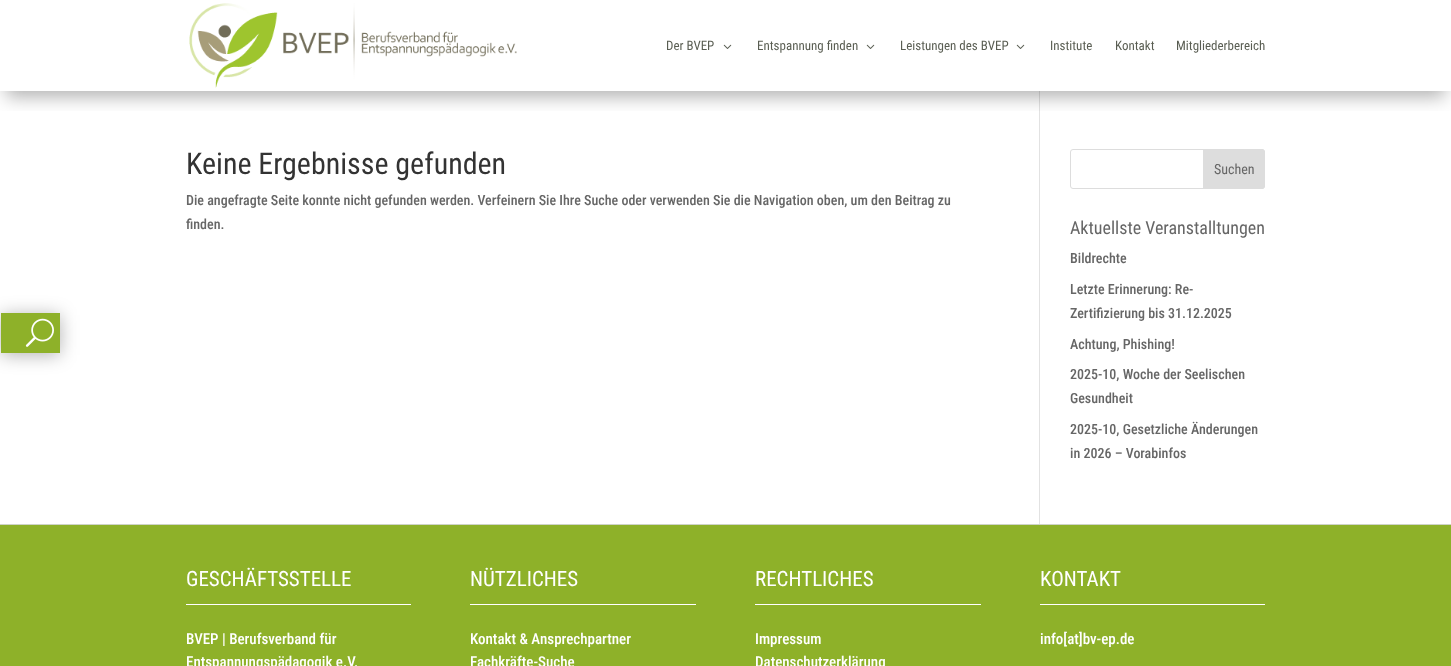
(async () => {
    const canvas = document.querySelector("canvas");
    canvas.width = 1451;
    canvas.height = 666;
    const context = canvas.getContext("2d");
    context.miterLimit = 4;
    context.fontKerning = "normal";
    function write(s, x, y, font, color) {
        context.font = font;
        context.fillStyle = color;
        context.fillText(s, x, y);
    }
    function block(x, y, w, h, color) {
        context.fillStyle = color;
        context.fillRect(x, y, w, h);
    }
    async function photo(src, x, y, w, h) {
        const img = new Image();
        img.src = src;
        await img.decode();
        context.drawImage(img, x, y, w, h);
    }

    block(0, 0, 1451, 666, "rgb(255, 255, 255)");
    block(1039, 91, 1, 433, "rgb(226, 226, 226)");
    context.save();
    context.beginPath();
    context.rect(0, 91, 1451, 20);
    context.clip();
    context.fillStyle = "rgba(0, 0, 0, 0.3)";
    context.filter = "blur(9px)";
    context.beginPath();
    context.rect(6, 18, 1439, 79);
    context.fill();
    context.filter = "none";
    context.restore();
    await photo("media/1.png", 189, 3, 328, 85);
    write("Der BVEP", 666, 50, "13px Roboto Condensed", "rgb(89, 93, 82)");
    await photo("media/2.png", 723, 44, 9, 5);
    write("Entspannung finden", 757, 50, "13px Roboto Condensed", "rgb(89, 93, 82)");
    await photo("media/2.png", 866, 44, 9, 5);
    write("Leistungen des BVEP", 900, 50, "13px Roboto Condensed", "rgb(89, 93, 82)");
    await photo("media/2.png", 1016, 44, 9, 5);
    write("Institute", 1050, 50, "13px Roboto Condensed", "rgb(89, 93, 82)");
    write("Kontakt", 1115, 50, "13px Roboto Condensed", "rgb(89, 93, 82)");
    write("Mitgliederbereich", 1176, 50, "13px Roboto Condensed", "rgb(89, 93, 82)");
    write("Keine Ergebnisse gefunden", 186, 174, "30px Roboto Condensed", "rgb(51, 51, 51)");
    write("Die angefragte Seite konnte nicht gefunden werden. Verfeinern Sie Ihre Suche oder verwenden Sie die Navigation oben, um den Beitrag zu", 186, 205, "500 14px Roboto Condensed", "rgb(102, 102, 102)");
    write("finden.", 186, 229, "500 14px Roboto Condensed", "rgb(102, 102, 102)");
    context.beginPath();
    context.roundRect(1070.5, 149.5, 194, 39, 2.5);
    context.strokeStyle = "rgb(221, 221, 221)";
    context.stroke();
    context.fillStyle = "rgb(221, 221, 221)";
    context.beginPath();
    context.roundRect(1203.5, 149.5, 61, 39, [0, 2.5, 2.5, 0]);
    context.fill();
    context.stroke();
    write("Suchen", 1214, 174, "14px 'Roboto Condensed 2'", "rgb(102, 102, 102)");
    write("Aktuellste Veranstalltungen", 1070, 234, "18px Roboto Condensed", "rgb(102, 102, 102)");
    write("Bildrechte", 1070, 263, "500 14px Roboto Condensed", "rgb(102, 102, 102)");
    write("Letzte Erinnerung: Re-", 1070, 294, "500 14px Roboto Condensed", "rgb(102, 102, 102)");
    write("Zertifizierung bis 31.12.2025", 1070, 318, "500 14px Roboto Condensed", "rgb(102, 102, 102)");
    write("Achtung, Phishing!", 1070, 349, "500 14px Roboto Condensed", "rgb(102, 102, 102)");
    write("2025-10, Woche der Seelischen", 1070, 379, "500 14px Roboto Condensed", "rgb(102, 102, 102)");
    write("Gesundheit", 1070, 403, "500 14px Roboto Condensed", "rgb(102, 102, 102)");
    write("2025-10, Gesetzliche Änderungen", 1070, 434, "500 14px Roboto Condensed", "rgb(102, 102, 102)");
    write("in 2026 – Vorabinfos", 1070, 458, "500 14px Roboto Condensed", "rgb(102, 102, 102)");
    block(0, 525, 1451, 141, "rgb(142, 177, 41)");
    block(0, 524, 1451, 1, "rgb(206, 211, 199)");
    write("GESCHÄFTSSTELLE", 186, 586, "21px Roboto Condensed", "rgb(255, 255, 255)");
    block(186, 604, 225, 1, "rgb(255, 255, 255)");
    write("BVEP | Berufsverband für", 186, 644, "500 15px Roboto Condensed", "rgb(255, 255, 255)");
    write("Entspannungspädagogik e.V.", 186, 667, "500 15px Roboto Condensed", "rgb(255, 255, 255)");
    write("NÜTZLICHES", 470, 586, "21px Roboto Condensed", "rgb(255, 255, 255)");
    block(470, 604, 226, 1, "rgb(255, 255, 255)");
    write("Kontakt & Ansprechpartner", 470, 644, "500 15px Roboto Condensed", "rgb(255, 255, 255)");
    write("Fachkräfte-Suche", 470, 667, "500 15px Roboto Condensed", "rgb(255, 255, 255)");
    context.fillStyle = "rgba(0, 0, 0, 0.3)";
    context.filter = "blur(9px)";
    context.beginPath();
    context.rect(1, 315, 59, 40);
    context.fill();
    context.filter = "none";
    block(1, 313, 59, 40, "rgb(142, 177, 41)");
    await photo("media/3.png", 25, 318, 29, 29);
    write("RECHTLICHES", 755, 586, "21px Roboto Condensed", "rgb(255, 255, 255)");
    block(755, 604, 226, 1, "rgb(255, 255, 255)");
    write("Impressum", 755, 644, "500 15px Roboto Condensed", "rgb(255, 255, 255)");
    write("Datenschutzerklärung", 755, 667, "500 15px Roboto Condensed", "rgb(255, 255, 255)");
    write("KONTAKT", 1040, 586, "21px Roboto Condensed", "rgb(255, 255, 255)");
    block(1040, 604, 225, 1, "rgb(255, 255, 255)");
    write("info[at]bv-ep.de", 1040, 644, "500 15px Roboto Condensed", "rgb(255, 255, 255)");
})();
